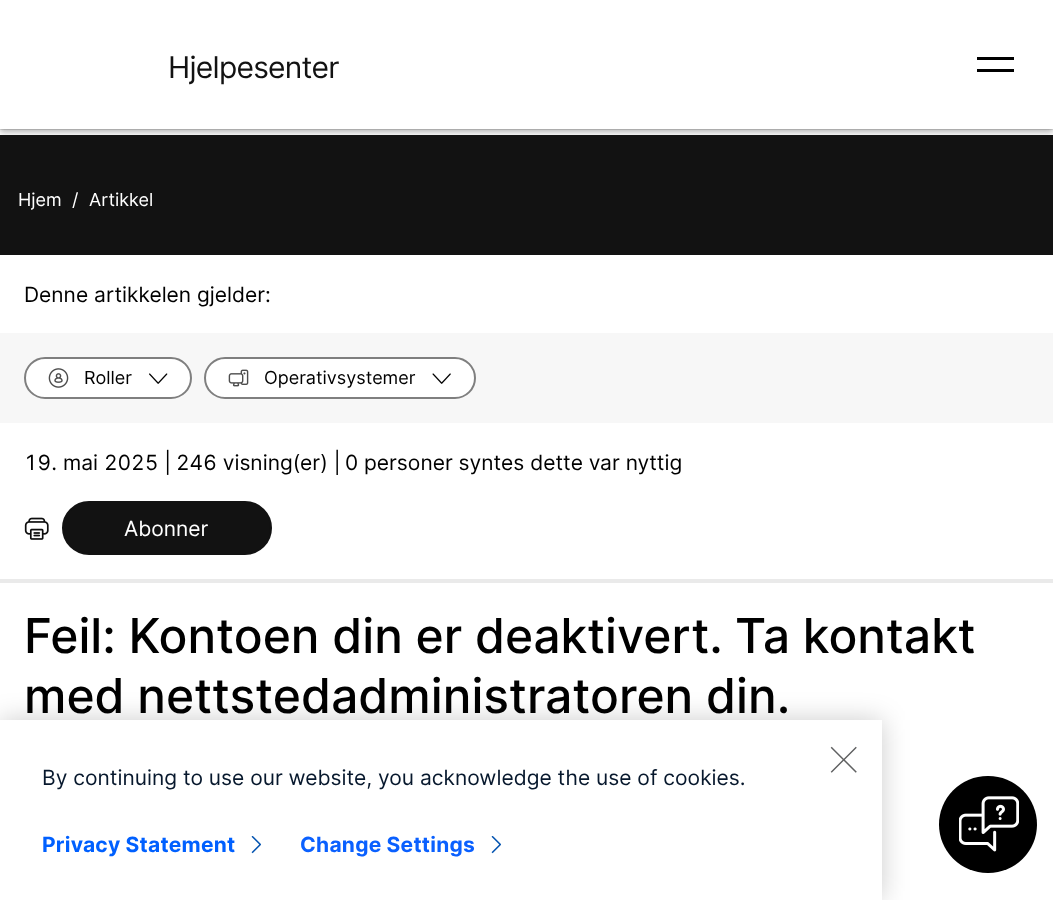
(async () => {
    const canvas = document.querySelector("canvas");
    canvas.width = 1053;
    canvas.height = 900;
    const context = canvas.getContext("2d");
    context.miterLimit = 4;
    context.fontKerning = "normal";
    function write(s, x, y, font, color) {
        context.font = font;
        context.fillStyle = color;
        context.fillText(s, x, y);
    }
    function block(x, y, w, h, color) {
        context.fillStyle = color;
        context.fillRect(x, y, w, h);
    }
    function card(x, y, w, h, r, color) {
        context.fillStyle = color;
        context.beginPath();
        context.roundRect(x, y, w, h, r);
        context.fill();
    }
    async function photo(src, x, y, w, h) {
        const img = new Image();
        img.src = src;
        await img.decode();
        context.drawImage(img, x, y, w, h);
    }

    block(0, 0, 1053, 900, "rgb(255, 255, 255)");
    context.save();
    context.beginPath();
    context.rect(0, 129, 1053, 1);
    context.clip();
    context.fillStyle = "rgba(0, 0, 0, 0.18)";
    context.filter = "blur(1px)";
    context.beginPath();
    context.rect(0, 0, 1053, 129);
    context.fill();
    context.filter = "none";
    context.restore();
    block(0, 135, 1053, 120, "rgb(18, 18, 18)");
    context.save();
    context.beginPath();
    context.rect(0, 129, 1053, 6);
    context.clip();
    context.fillStyle = "rgba(0, 0, 0, 0.16)";
    context.filter = "blur(3px)";
    context.beginPath();
    context.rect(0, 3, 1053, 129);
    context.fill();
    context.filter = "none";
    context.restore();
    context.save();
    context.beginPath();
    context.rect(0, 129, 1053, 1);
    context.clip();
    context.fillStyle = "rgba(0, 0, 0, 0.18)";
    context.filter = "blur(1px)";
    context.beginPath();
    context.rect(0, 0, 1053, 129);
    context.fill();
    context.filter = "none";
    context.restore();
    context.save();
    context.beginPath();
    context.rect(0, 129, 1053, 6);
    context.clip();
    context.fillStyle = "rgba(0, 0, 0, 0.16)";
    context.filter = "blur(3px)";
    context.beginPath();
    context.rect(0, 3, 1053, 129);
    context.fill();
    context.filter = "none";
    context.restore();
    context.letterSpacing = "-0.75px";
    write("Hjelpesenter", 168, 78, "30px Inter", "rgb(18, 18, 18)");
    block(977, 57, 37, 3, "rgb(0, 0, 0)");
    block(977, 69, 37, 3, "rgb(0, 0, 0)");
    context.letterSpacing = "0px";
    write("Hjem", 18, 206, "18px Inter", "rgb(255, 255, 255)");
    write("/", 72, 206, "18px Inter", "rgb(255, 255, 255)");
    write("Artikkel", 89, 206, "18px Inter", "rgb(255, 255, 255)");
    block(0, 579, 1053, 4, "rgb(234, 234, 234)");
    write("Denne artikkelen gjelder:", 24, 302, "21px Inter", "rgb(0, 0, 0)");
    block(0, 333, 1053, 90, "rgb(247, 247, 247)");
    card(24, 357, 168, 42, 21, "rgb(255, 255, 255)");
    context.beginPath();
    context.roundRect(25, 358, 166, 40, 20);
    context.strokeStyle = "rgba(0, 0, 0, 0.5)";
    context.lineWidth = 2;
    context.stroke();
    await photo("media/1.png", 48, 368, 21, 20);
    write("Roller", 84, 384, "18px Inter", "rgb(0, 0, 0)");
    await photo("media/2.png", 149, 373, 19, 11);
    card(204, 357, 272, 42, 21, "rgb(255, 255, 255)");
    context.beginPath();
    context.roundRect(205, 358, 270, 40, 20);
    context.stroke();
    await photo("media/3.png", 228, 369, 21, 18);
    write("Operativsystemer", 264, 384, "18px Inter", "rgb(0, 0, 0)");
    await photo("media/4.png", 432, 373, 19, 11);
    write("19. mai 2025 |", 24, 470, "21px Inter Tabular", "rgb(0, 0, 0)");
    write("246 visning(er) |", 176, 470, "21px Inter Tabular", "rgb(0, 0, 0)");
    write("0 personer syntes dette var nyttig", 345, 470, "21px Inter", "rgb(0, 0, 0)");
    await photo("media/5.png", 24, 517, 25, 23);
    context.fillStyle = "rgb(18, 18, 18)";
    context.beginPath();
    context.roundRect(63, 502, 208, 52, 26);
    context.fill();
    context.strokeStyle = "rgb(18, 18, 18)";
    context.stroke();
    write("Abonner", 124, 536, "21px Inter", "rgb(255, 255, 255)");
    write("Feil: Kontoen din er deaktivert. Ta kontakt", 24, 653, "500 48px Inter", "rgb(0, 0, 0)");
    write("med nettstedadministratoren din.", 24, 713, "500 48px Inter", "rgb(0, 0, 0)");
    card(939, 776, 98, 97, 48.5, "rgb(0, 0, 0)");
    await photo("media/6.png", 959, 796, 60, 56);
    context.fillStyle = "rgba(0, 0, 0, 0.2)";
    context.filter = "blur(13.5px)";
    context.beginPath();
    context.rect(0, 720, 882, 180);
    context.fill();
    context.filter = "none";
    block(0, 720, 882, 180, "rgb(255, 255, 255)");
    await photo("media/7.png", 830, 746, 27, 27);
    write("By continuing to use our website, you acknowledge the use of cookies.", 42, 785, "21px Inter", "rgb(7, 24, 45)");
    context.letterSpacing = "0.25px";
    write("Privacy Statement", 42, 852, "bold 21px Inter", "rgb(0, 96, 255)");
    await photo("media/8.png", 251, 836, 10, 18);
    write("Change Settings", 300, 852, "bold 21px Inter", "rgb(10, 96, 255)");
    await photo("media/8.png", 491, 836, 10, 18);
})();
